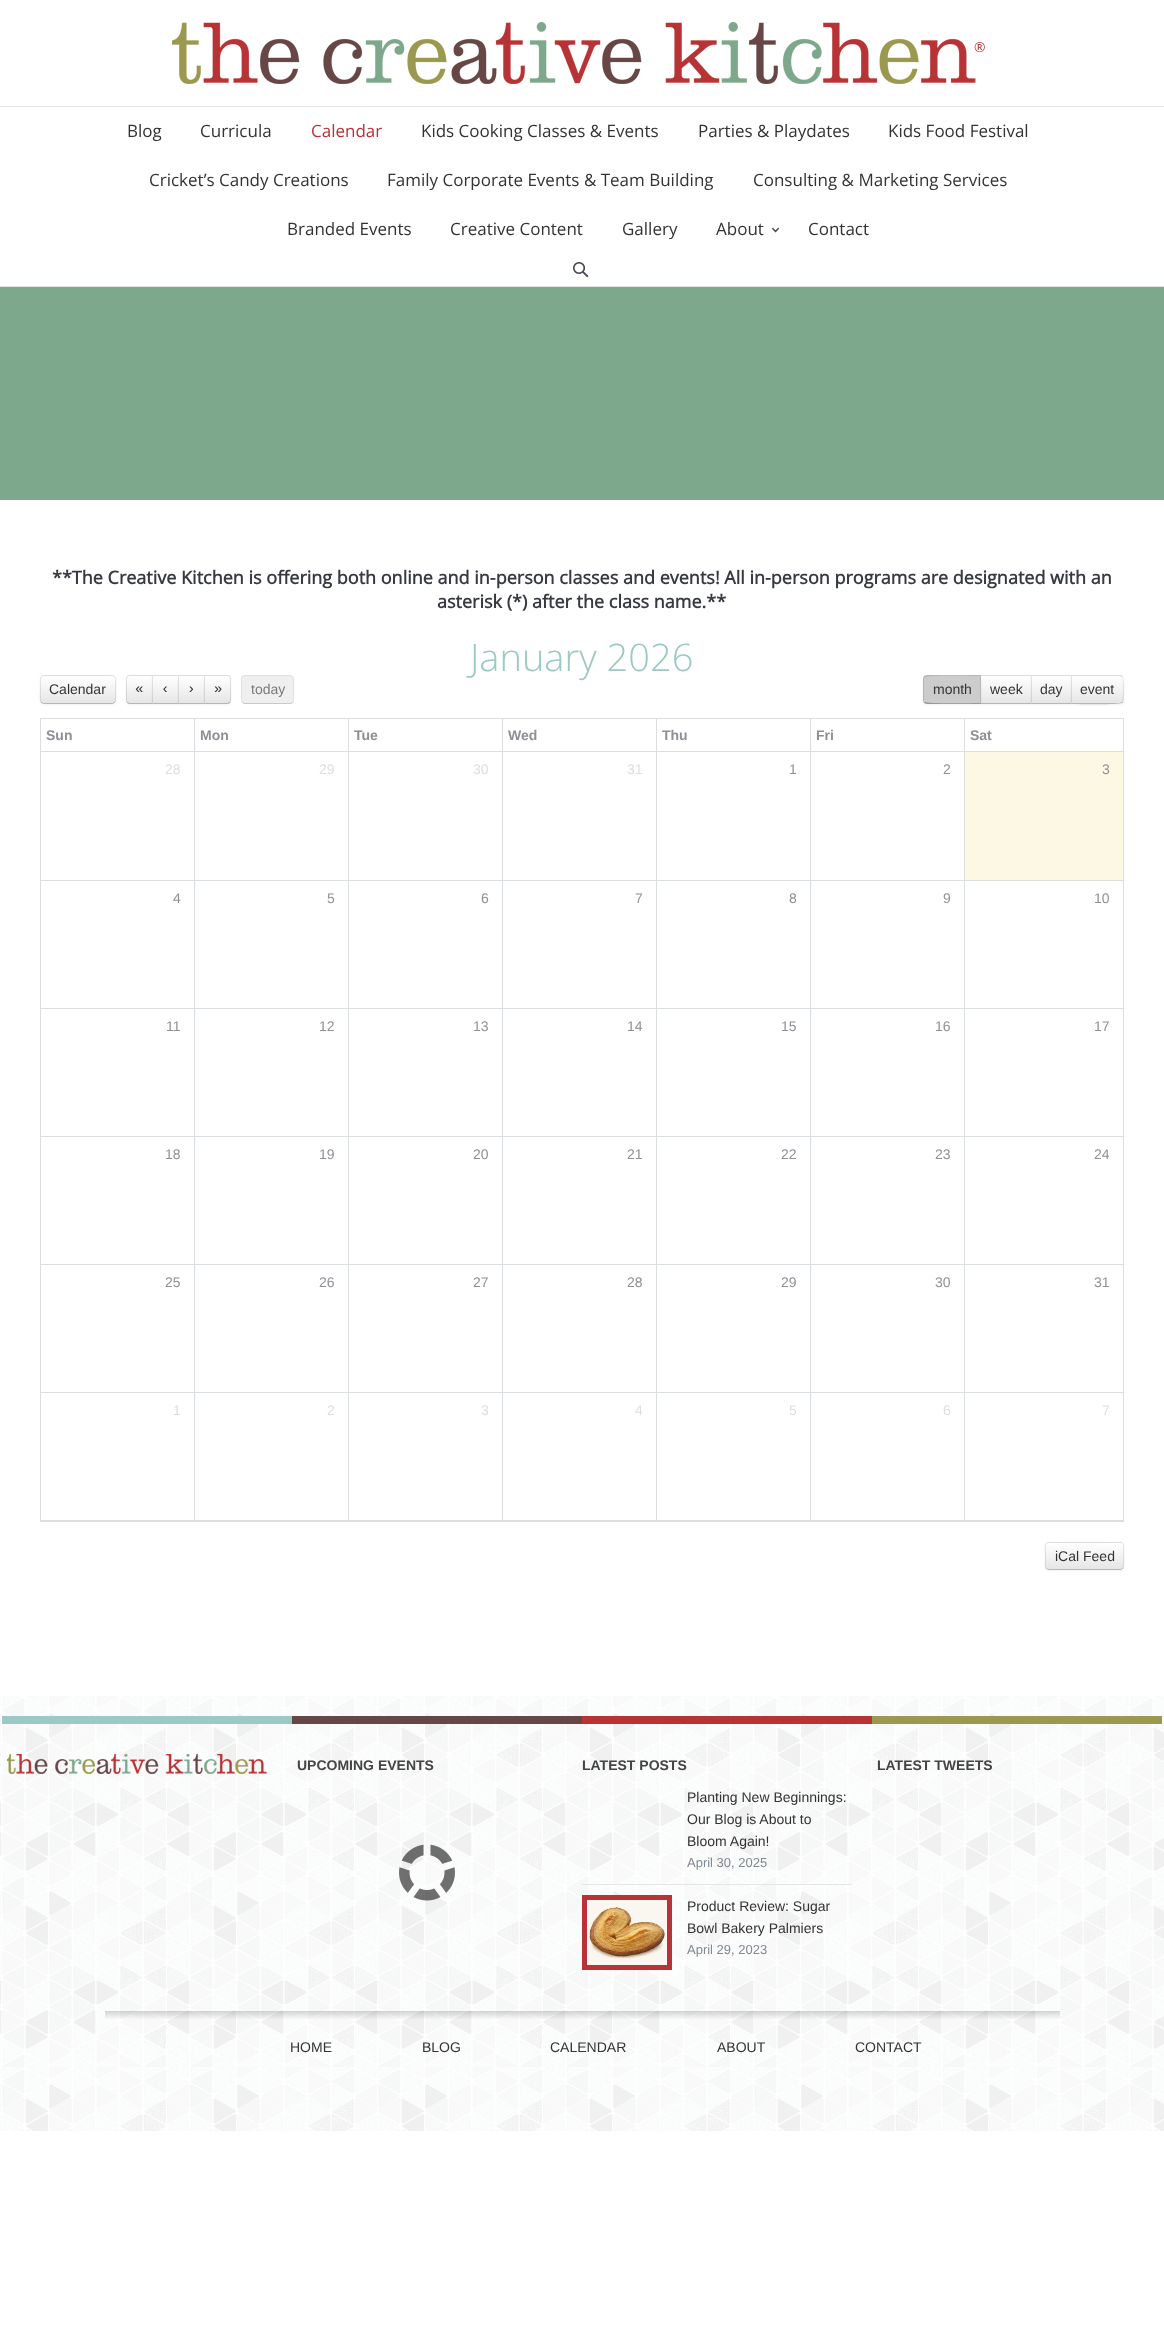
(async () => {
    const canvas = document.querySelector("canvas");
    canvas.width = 1164;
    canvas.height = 2328;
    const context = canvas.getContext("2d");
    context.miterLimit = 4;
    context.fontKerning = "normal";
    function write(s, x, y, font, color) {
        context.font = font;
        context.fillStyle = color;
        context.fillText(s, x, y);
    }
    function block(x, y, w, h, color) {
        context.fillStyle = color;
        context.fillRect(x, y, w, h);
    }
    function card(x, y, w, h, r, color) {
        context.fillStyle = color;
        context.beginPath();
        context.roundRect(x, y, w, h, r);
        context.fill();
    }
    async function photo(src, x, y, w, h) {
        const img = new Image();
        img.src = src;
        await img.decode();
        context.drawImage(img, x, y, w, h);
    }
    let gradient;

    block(0, 0, 1164, 2328, "rgb(255, 255, 255)");
    block(0, 286, 1164, 1, "rgb(225, 229, 231)");
    await photo("media/1.png", 172, 22, 813, 62);
    block(0, 106, 1164, 1, "rgb(228, 229, 229)");
    write("Blog", 127, 137, "17px Open Sans", "rgb(51, 51, 51)");
    write("Curricula", 200, 137, "17px Open Sans", "rgb(51, 51, 51)");
    write("Calendar", 311, 137, "17px Open Sans", "rgb(181, 51, 53)");
    write("Kids Cooking Classes & Events", 421, 137, "17px Open Sans", "rgb(51, 51, 51)");
    write("Parties & Playdates", 698, 137, "17px Open Sans", "rgb(51, 51, 51)");
    write("Kids Food Festival", 888, 137, "17px Open Sans", "rgb(51, 51, 51)");
    write("Cricket’s Candy Creations", 149, 186, "17px Open Sans", "rgb(51, 51, 51)");
    write("Family Corporate Events & Team Building", 387, 186, "17px Open Sans", "rgb(51, 51, 51)");
    write("Consulting & Marketing Services", 753, 186, "17px Open Sans", "rgb(51, 51, 51)");
    write("Branded Events", 287, 235, "17px Open Sans", "rgb(51, 51, 51)");
    write("Creative Content", 450, 235, "17px Open Sans", "rgb(51, 51, 51)");
    write("Gallery", 622, 235, "17px Open Sans", "rgb(51, 51, 51)");
    write("About", 716, 235, "17px Open Sans", "rgb(51, 51, 51)");
    await photo("media/2.png", 771, 227, 9, 6);
    write("Contact", 808, 235, "17px Open Sans", "rgb(51, 51, 51)");
    await photo("media/3.png", 573, 262, 16, 16);
    block(0, 287, 1164, 213, "rgb(125, 168, 139)");
    write("**The Creative Kitchen is offering both online and in-person classes and events! All in-person programs are designated with an", 52, 584, "bold 18px Open Sans", "rgb(55, 58, 65)");
    write("asterisk (*) after the class name.**", 437, 608, "bold 18px Open Sans", "rgb(55, 58, 65)");
    write("January 2026", 470, 671, "300 38px Open Sans", "rgb(156, 201, 196)");
    context.fillStyle = "rgba(0, 0, 0, 0.05)";
    context.filter = "blur(1px)";
    context.beginPath();
    context.roundRect(40, 676, 76, 29, 4);
    context.fill();
    context.filter = "none";
    card(40, 675, 76, 29, 4, "rgb(245, 245, 245)");
    context.save();
    context.beginPath();
    context.roundRect(40, 675, 76, 29, 4);
    context.clip();
    gradient = context.createLinearGradient(78, 676, 78, 703);
    gradient.addColorStop(0, "rgb(255, 255, 255)");
    gradient.addColorStop(1, "rgb(230, 230, 230)");
    context.fillStyle = gradient;
    context.fillRect(40, 676, 76, 27);
    context.restore();
    context.beginPath();
    context.moveTo(114.5, 702.5);
    context.lineTo(112.5, 703.5);
    context.lineTo(43.5, 703.5);
    context.lineTo(41.5, 702.5);
    context.strokeStyle = "rgba(0, 0, 0, 0.25)";
    context.stroke();
    context.beginPath();
    context.moveTo(41.5, 702.5);
    context.bezierCurveTo(39.5, 700.5, 40.5, 692, 40.5, 689.5);
    context.bezierCurveTo(40.5, 673.5, 38.5, 675.5, 55.5, 675.5);
    context.lineTo(100.5, 675.5);
    context.bezierCurveTo(117.5, 675.5, 115.5, 673.5, 115.5, 689.5);
    context.bezierCurveTo(115.5, 692, 116.5, 700.5, 114.5, 702.5);
    context.strokeStyle = "rgba(0, 0, 0, 0.1)";
    context.stroke();
    write("Calendar", 49, 694, "14px Liberation Sans", "rgb(51, 51, 51)");
    context.fillStyle = "rgba(0, 0, 0, 0.05)";
    context.filter = "blur(1px)";
    context.beginPath();
    context.roundRect(126, 676, 27, 29, 4);
    context.fill();
    context.filter = "none";
    context.fillStyle = "rgb(245, 245, 245)";
    context.beginPath();
    context.roundRect(126, 675, 27, 29, [4, 0, 0, 4]);
    context.fill();
    context.save();
    context.beginPath();
    context.roundRect(126, 675, 27, 29, [4, 0, 0, 4]);
    context.clip();
    gradient = context.createLinearGradient(140, 676, 140, 703);
    gradient.addColorStop(0, "rgb(255, 255, 255)");
    gradient.addColorStop(1, "rgb(230, 230, 230)");
    context.fillStyle = gradient;
    context.fillRect(126, 676, 26, 27);
    context.restore();
    context.fillStyle = "rgba(0, 0, 0, 0.1)";
    context.beginPath();
    context.moveTo(130, 675);
    context.bezierCurveTo(129, 675, 128, 675.5, 127, 676);
    context.lineTo(128, 677);
    context.bezierCurveTo(128.5, 676.5, 129, 676, 130, 676);
    context.lineTo(152, 676);
    context.lineTo(153, 675);
    context.closePath();
    context.fill();
    context.fillStyle = "rgba(0, 0, 0, 0.25)";
    context.beginPath();
    context.moveTo(153, 704);
    context.lineTo(152, 703);
    context.lineTo(130, 703);
    context.bezierCurveTo(129, 703, 128.5, 702.5, 128, 702);
    context.lineTo(127, 703);
    context.bezierCurveTo(128, 703.5, 129, 704, 130, 704);
    context.closePath();
    context.fill();
    context.fillStyle = "rgba(0, 0, 0, 0.1)";
    context.beginPath();
    context.moveTo(126, 679);
    context.lineTo(126, 700);
    context.bezierCurveTo(126, 701, 126.5, 702, 127, 703);
    context.lineTo(128, 702);
    context.bezierCurveTo(127.5, 701.5, 127, 701, 127, 700);
    context.lineTo(127, 679);
    context.bezierCurveTo(127, 678, 127.5, 677.5, 128, 677);
    context.lineTo(127, 676);
    context.bezierCurveTo(126.5, 677, 126, 678, 126, 679);
    context.closePath();
    context.fill();
    write("«", 135, 693, "14px Liberation Mono", "rgb(51, 51, 51)");
    context.fillStyle = "rgba(0, 0, 0, 0.05)";
    context.filter = "blur(1px)";
    context.beginPath();
    context.rect(152, 676, 27, 29);
    context.fill();
    context.filter = "none";
    block(152, 675, 26, 29, "rgb(245, 245, 245)");
    gradient = context.createLinearGradient(166, 676, 166, 703);
    gradient.addColorStop(0, "rgb(255, 255, 255)");
    gradient.addColorStop(1, "rgb(230, 230, 230)");
    context.fillStyle = gradient;
    context.fillRect(152, 676, 26, 27);
    context.fillStyle = "rgb(221, 221, 221)";
    context.beginPath();
    context.moveTo(152, 675);
    context.lineTo(179, 675);
    context.lineTo(178, 676);
    context.lineTo(153, 676);
    context.closePath();
    context.fill();
    context.fillStyle = "rgba(0, 0, 0, 0.25)";
    context.beginPath();
    context.moveTo(179, 704);
    context.lineTo(152, 704);
    context.lineTo(153, 703);
    context.lineTo(178, 703);
    context.closePath();
    context.fill();
    context.fillStyle = "rgba(0, 0, 0, 0.1)";
    context.beginPath();
    context.moveTo(152, 704);
    context.lineTo(152, 675);
    context.lineTo(153, 676);
    context.lineTo(153, 703);
    context.closePath();
    context.fill();
    write("‹", 161, 693, "14px Liberation Mono", "rgb(51, 51, 51)");
    context.fillStyle = "rgba(0, 0, 0, 0.05)";
    context.filter = "blur(1px)";
    context.beginPath();
    context.rect(178, 676, 27, 29);
    context.fill();
    context.filter = "none";
    block(178, 675, 26, 29, "rgb(245, 245, 245)");
    gradient = context.createLinearGradient(192, 676, 192, 703);
    gradient.addColorStop(0, "rgb(255, 255, 255)");
    gradient.addColorStop(1, "rgb(230, 230, 230)");
    context.fillStyle = gradient;
    context.fillRect(178, 676, 26, 27);
    context.fillStyle = "rgb(221, 221, 221)";
    context.beginPath();
    context.moveTo(178, 675);
    context.lineTo(205, 675);
    context.lineTo(204, 676);
    context.lineTo(179, 676);
    context.closePath();
    context.fill();
    context.fillStyle = "rgba(0, 0, 0, 0.25)";
    context.beginPath();
    context.moveTo(205, 704);
    context.lineTo(178, 704);
    context.lineTo(179, 703);
    context.lineTo(204, 703);
    context.closePath();
    context.fill();
    context.fillStyle = "rgba(0, 0, 0, 0.1)";
    context.beginPath();
    context.moveTo(178, 704);
    context.lineTo(178, 675);
    context.lineTo(179, 676);
    context.lineTo(179, 703);
    context.closePath();
    context.fill();
    write("›", 187, 693, "14px Liberation Mono", "rgb(51, 51, 51)");
    context.fillStyle = "rgba(0, 0, 0, 0.05)";
    context.filter = "blur(1px)";
    context.beginPath();
    context.roundRect(204, 676, 27, 29, 4);
    context.fill();
    context.filter = "none";
    context.fillStyle = "rgb(245, 245, 245)";
    context.beginPath();
    context.roundRect(204, 675, 27, 29, [0, 4, 4, 0]);
    context.fill();
    context.save();
    context.beginPath();
    context.roundRect(204, 675, 27, 29, [0, 4, 4, 0]);
    context.clip();
    gradient = context.createLinearGradient(218, 676, 218, 703);
    gradient.addColorStop(0, "rgb(255, 255, 255)");
    gradient.addColorStop(1, "rgb(230, 230, 230)");
    context.fillStyle = gradient;
    context.fillRect(204, 676, 27, 27);
    context.restore();
    context.fillStyle = "rgba(0, 0, 0, 0.1)";
    context.beginPath();
    context.moveTo(204, 675);
    context.lineTo(205, 676);
    context.lineTo(227, 676);
    context.bezierCurveTo(228, 676, 228.5, 676.5, 229, 677);
    context.lineTo(230, 676);
    context.bezierCurveTo(229, 675.5, 228, 675, 227, 675);
    context.closePath();
    context.fill();
    context.beginPath();
    context.moveTo(231, 700);
    context.lineTo(231, 679);
    context.bezierCurveTo(231, 678, 230.5, 677, 230, 676);
    context.lineTo(229, 677);
    context.bezierCurveTo(229.5, 677.5, 230, 678, 230, 679);
    context.lineTo(230, 700);
    context.bezierCurveTo(230, 701, 229.5, 701.5, 229, 702);
    context.lineTo(230, 703);
    context.bezierCurveTo(230.5, 702, 231, 701, 231, 700);
    context.closePath();
    context.fill();
    context.fillStyle = "rgba(0, 0, 0, 0.25)";
    context.beginPath();
    context.moveTo(227, 704);
    context.bezierCurveTo(228, 704, 229, 703.5, 230, 703);
    context.lineTo(229, 702);
    context.bezierCurveTo(228.5, 702.5, 228, 703, 227, 703);
    context.lineTo(205, 703);
    context.lineTo(204, 704);
    context.closePath();
    context.fill();
    context.fillStyle = "rgba(0, 0, 0, 0.1)";
    context.beginPath();
    context.moveTo(205, 676);
    context.lineTo(204, 675);
    context.lineTo(204, 704);
    context.lineTo(205, 703);
    context.closePath();
    context.fill();
    write("»", 214, 693, "14px Liberation Mono", "rgb(51, 51, 51)");
    card(241, 675, 53, 29, 4, "rgb(239, 239, 239)");
    context.beginPath();
    context.moveTo(292.5, 702.5);
    context.bezierCurveTo(292, 703, 291, 703.5, 290, 703.5);
    context.lineTo(245, 703.5);
    context.bezierCurveTo(244, 703.5, 243, 703, 242.5, 702.5);
    context.strokeStyle = "rgba(89, 89, 89, 0.25)";
    context.stroke();
    context.beginPath();
    context.moveTo(242.5, 702.5);
    context.bezierCurveTo(240.5, 700.5, 241.5, 692, 241.5, 689.5);
    context.bezierCurveTo(241.5, 675.5, 239, 675.5, 252.5, 675.5);
    context.lineTo(282.5, 675.5);
    context.bezierCurveTo(296, 675.5, 293.5, 675.5, 293.5, 689.5);
    context.bezierCurveTo(293.5, 692, 294.5, 700.5, 292.5, 702.5);
    context.strokeStyle = "rgba(89, 89, 89, 0.1)";
    context.stroke();
    write("today", 251, 694, "14px Liberation Sans", "rgb(122, 122, 122)");
    context.fillStyle = "rgba(0, 0, 0, 0.05)";
    context.filter = "blur(1px)";
    context.beginPath();
    context.rect(980, 676, 52, 29);
    context.fill();
    context.filter = "none";
    gradient = context.createLinearGradient(1006, 676, 1006, 703);
    gradient.addColorStop(0, "rgb(255, 255, 255)");
    gradient.addColorStop(1, "rgb(230, 230, 230)");
    context.fillStyle = gradient;
    context.fillRect(981, 676, 50, 27);
    context.fillStyle = "rgb(221, 221, 221)";
    context.beginPath();
    context.moveTo(980, 675);
    context.lineTo(1032, 675);
    context.lineTo(1031, 676);
    context.lineTo(981, 676);
    context.closePath();
    context.fill();
    context.fillStyle = "rgba(0, 0, 0, 0.25)";
    context.beginPath();
    context.moveTo(1032, 704);
    context.lineTo(980, 704);
    context.lineTo(981, 703);
    context.lineTo(1031, 703);
    context.closePath();
    context.fill();
    context.fillStyle = "rgba(0, 0, 0, 0.05)";
    context.filter = "blur(1px)";
    context.beginPath();
    context.roundRect(923, 676, 58, 29, 4);
    context.fill();
    context.filter = "none";
    context.fillStyle = "rgb(204, 204, 204)";
    context.beginPath();
    context.roundRect(923, 675, 58, 29, [4, 0, 0, 4]);
    context.fill();
    context.fillStyle = "rgba(0, 0, 0, 0.1)";
    context.beginPath();
    context.moveTo(927, 675);
    context.lineTo(924, 676);
    context.lineTo(925, 677);
    context.bezierCurveTo(927, 675, 974, 676, 980, 676);
    context.lineTo(981, 675);
    context.closePath();
    context.fill();
    context.beginPath();
    context.moveTo(981, 675);
    context.lineTo(980, 676);
    context.lineTo(980, 703);
    context.lineTo(981, 704);
    context.closePath();
    context.fill();
    context.fillStyle = "rgba(0, 0, 0, 0.25)";
    context.beginPath();
    context.moveTo(981, 704);
    context.lineTo(980, 703);
    context.bezierCurveTo(974, 703, 927, 704, 925, 702);
    context.lineTo(924, 703);
    context.lineTo(927, 704);
    context.closePath();
    context.fill();
    context.fillStyle = "rgba(0, 0, 0, 0.1)";
    context.beginPath();
    context.moveTo(923, 679);
    context.lineTo(923, 700);
    context.bezierCurveTo(923, 701, 923.5, 702, 924, 703);
    context.lineTo(925, 702);
    context.bezierCurveTo(924, 702, 924, 701, 924, 700);
    context.lineTo(924, 679);
    context.bezierCurveTo(924, 678, 924, 677, 925, 677);
    context.lineTo(924, 676);
    context.bezierCurveTo(923.5, 677, 923, 678, 923, 679);
    context.closePath();
    context.fill();
    write("month", 933, 694, "14px Liberation Sans", "rgb(51, 51, 51)");
    write("week", 990, 694, "14px Liberation Sans", "rgb(51, 51, 51)");
    context.fillStyle = "rgba(0, 0, 0, 0.05)";
    context.filter = "blur(1px)";
    context.beginPath();
    context.rect(1031, 676, 41, 29);
    context.fill();
    context.filter = "none";
    block(1031, 675, 40, 29, "rgb(245, 245, 245)");
    gradient = context.createLinearGradient(1052, 676, 1052, 703);
    gradient.addColorStop(0, "rgb(255, 255, 255)");
    gradient.addColorStop(1, "rgb(230, 230, 230)");
    context.fillStyle = gradient;
    context.fillRect(1031, 676, 40, 27);
    context.fillStyle = "rgb(221, 221, 221)";
    context.beginPath();
    context.moveTo(1031, 675);
    context.lineTo(1072, 675);
    context.lineTo(1071, 676);
    context.lineTo(1032, 676);
    context.closePath();
    context.fill();
    context.fillStyle = "rgba(0, 0, 0, 0.25)";
    context.beginPath();
    context.moveTo(1072, 704);
    context.lineTo(1031, 704);
    context.lineTo(1032, 703);
    context.lineTo(1071, 703);
    context.closePath();
    context.fill();
    context.fillStyle = "rgba(0, 0, 0, 0.1)";
    context.beginPath();
    context.moveTo(1031, 704);
    context.lineTo(1031, 675);
    context.lineTo(1032, 676);
    context.lineTo(1032, 703);
    context.closePath();
    context.fill();
    write("day", 1040, 694, "14px Liberation Sans", "rgb(51, 51, 51)");
    context.fillStyle = "rgba(0, 0, 0, 0.05)";
    context.filter = "blur(1px)";
    context.beginPath();
    context.roundRect(1071, 676, 53, 29, 4);
    context.fill();
    context.filter = "none";
    context.fillStyle = "rgb(245, 245, 245)";
    context.beginPath();
    context.roundRect(1071, 675, 53, 29, [0, 4, 4, 0]);
    context.fill();
    context.save();
    context.beginPath();
    context.roundRect(1071, 675, 53, 29, [0, 4, 4, 0]);
    context.clip();
    gradient = context.createLinearGradient(1098, 676, 1098, 703);
    gradient.addColorStop(0, "rgb(255, 255, 255)");
    gradient.addColorStop(1, "rgb(230, 230, 230)");
    context.fillStyle = gradient;
    context.fillRect(1071, 676, 53, 27);
    context.restore();
    context.fillStyle = "rgba(0, 0, 0, 0.1)";
    context.beginPath();
    context.moveTo(1071, 675);
    context.lineTo(1072, 676);
    context.lineTo(1119, 676);
    context.lineTo(1122, 677);
    context.lineTo(1123, 676);
    context.lineTo(1121, 675);
    context.closePath();
    context.fill();
    context.beginPath();
    context.moveTo(1122.5, 676.5);
    context.bezierCurveTo(1124.5, 679, 1124.5, 700, 1122.5, 702.5);
    context.lineTo(1122, 702);
    context.bezierCurveTo(1123.5, 699.5, 1123.5, 679.5, 1122, 677);
    context.closePath();
    context.fill();
    context.fillStyle = "rgba(0, 0, 0, 0.25)";
    context.beginPath();
    context.moveTo(1122, 703);
    context.lineTo(1123, 703);
    context.lineTo(1122, 702);
    context.lineTo(1120, 703);
    context.lineTo(1072, 703);
    context.lineTo(1071, 704);
    context.bezierCurveTo(1077, 704, 1120, 705, 1122, 703);
    context.closePath();
    context.fill();
    context.fillStyle = "rgba(0, 0, 0, 0.1)";
    context.beginPath();
    context.moveTo(1071, 675);
    context.lineTo(1071, 704);
    context.lineTo(1072, 703);
    context.lineTo(1072, 676);
    context.closePath();
    context.fill();
    write("event", 1080, 694, "14px Liberation Sans", "rgb(51, 51, 51)");
    block(40, 1521, 1084, 1, "rgb(218, 222, 225)");
    block(40, 718, 924, 1, "rgb(218, 222, 225)");
    block(40, 751, 924, 1, "rgb(218, 222, 225)");
    block(40, 718, 1, 162, "rgb(218, 222, 225)");
    write("Sun", 46, 740, "bold 14px Liberation Sans", "rgb(141, 144, 149)");
    block(194, 718, 1, 162, "rgb(218, 222, 225)");
    write("Mon", 200, 740, "bold 14px Liberation Sans", "rgb(141, 144, 149)");
    block(348, 718, 1, 162, "rgb(218, 222, 225)");
    write("Tue", 354, 740, "bold 14px Liberation Sans", "rgb(141, 144, 149)");
    block(502, 718, 1, 162, "rgb(218, 222, 225)");
    write("Wed", 508, 740, "bold 14px Liberation Sans", "rgb(141, 144, 149)");
    block(656, 718, 1, 162, "rgb(218, 222, 225)");
    write("Thu", 662, 740, "bold 14px Liberation Sans", "rgb(141, 144, 149)");
    block(810, 718, 1, 162, "rgb(218, 222, 225)");
    write("Fri", 816, 740, "bold 14px Liberation Sans", "rgb(141, 144, 149)");
    context.strokeStyle = "rgb(218, 222, 225)";
    context.strokeRect(964.5, 718.5, 159, 33);
    write("Sat", 970, 740, "bold 14px Liberation Sans", "rgb(141, 144, 149)");
    write("28", 165, 774, "14px Liberation Sans", "rgb(221, 222, 223)");
    write("29", 319, 774, "14px Liberation Sans", "rgb(221, 222, 223)");
    write("30", 473, 774, "14px Liberation Sans", "rgb(221, 222, 223)");
    write("31", 627, 774, "14px Liberation Sans", "rgb(221, 222, 223)");
    write("1", 789, 774, "14px Liberation Sans", "rgb(141, 144, 149)");
    write("2", 943, 774, "14px Liberation Sans", "rgb(141, 144, 149)");
    block(965, 752, 158, 128, "rgb(252, 248, 227)");
    block(1123, 752, 1, 128, "rgb(218, 222, 225)");
    block(964, 752, 1, 128, "rgb(218, 222, 225)");
    write("3", 1102, 774, "14px Liberation Sans", "rgb(141, 144, 149)");
    block(40, 880, 1084, 1, "rgb(218, 222, 225)");
    block(40, 880, 1, 128, "rgb(218, 222, 225)");
    write("4", 173, 903, "14px Liberation Sans", "rgb(141, 144, 149)");
    block(194, 880, 1, 128, "rgb(218, 222, 225)");
    write("5", 327, 903, "14px Liberation Sans", "rgb(141, 144, 149)");
    block(348, 880, 1, 128, "rgb(218, 222, 225)");
    write("6", 481, 903, "14px Liberation Sans", "rgb(141, 144, 149)");
    block(502, 880, 1, 128, "rgb(218, 222, 225)");
    write("7", 635, 903, "14px Liberation Sans", "rgb(141, 144, 149)");
    block(656, 880, 1, 128, "rgb(218, 222, 225)");
    write("8", 789, 903, "14px Liberation Sans", "rgb(141, 144, 149)");
    block(810, 880, 1, 128, "rgb(218, 222, 225)");
    write("9", 943, 903, "14px Liberation Sans", "rgb(141, 144, 149)");
    block(1123, 880, 1, 128, "rgb(218, 222, 225)");
    block(964, 880, 1, 128, "rgb(218, 222, 225)");
    write("10", 1094, 903, "14px Liberation Sans", "rgb(141, 144, 149)");
    block(40, 1008, 1084, 1, "rgb(218, 222, 225)");
    block(40, 1008, 1, 128, "rgb(218, 222, 225)");
    write("11", 166, 1031, "14px Liberation Sans", "rgb(141, 144, 149)");
    block(194, 1008, 1, 128, "rgb(218, 222, 225)");
    write("12", 319, 1031, "14px Liberation Sans", "rgb(141, 144, 149)");
    block(348, 1008, 1, 128, "rgb(218, 222, 225)");
    write("13", 473, 1031, "14px Liberation Sans", "rgb(141, 144, 149)");
    block(502, 1008, 1, 128, "rgb(218, 222, 225)");
    write("14", 627, 1031, "14px Liberation Sans", "rgb(141, 144, 149)");
    block(656, 1008, 1, 128, "rgb(218, 222, 225)");
    write("15", 781, 1031, "14px Liberation Sans", "rgb(141, 144, 149)");
    block(810, 1008, 1, 128, "rgb(218, 222, 225)");
    write("16", 935, 1031, "14px Liberation Sans", "rgb(141, 144, 149)");
    block(1123, 1008, 1, 128, "rgb(218, 222, 225)");
    block(964, 1008, 1, 128, "rgb(218, 222, 225)");
    write("17", 1094, 1031, "14px Liberation Sans", "rgb(141, 144, 149)");
    block(40, 1136, 1084, 1, "rgb(218, 222, 225)");
    block(40, 1136, 1, 128, "rgb(218, 222, 225)");
    write("18", 165, 1159, "14px Liberation Sans", "rgb(141, 144, 149)");
    block(194, 1136, 1, 128, "rgb(218, 222, 225)");
    write("19", 319, 1159, "14px Liberation Sans", "rgb(141, 144, 149)");
    block(348, 1136, 1, 128, "rgb(218, 222, 225)");
    write("20", 473, 1159, "14px Liberation Sans", "rgb(141, 144, 149)");
    block(502, 1136, 1, 128, "rgb(218, 222, 225)");
    write("21", 627, 1159, "14px Liberation Sans", "rgb(141, 144, 149)");
    block(656, 1136, 1, 128, "rgb(218, 222, 225)");
    write("22", 781, 1159, "14px Liberation Sans", "rgb(141, 144, 149)");
    block(810, 1136, 1, 128, "rgb(218, 222, 225)");
    write("23", 935, 1159, "14px Liberation Sans", "rgb(141, 144, 149)");
    block(1123, 1136, 1, 128, "rgb(218, 222, 225)");
    block(964, 1136, 1, 128, "rgb(218, 222, 225)");
    write("24", 1094, 1159, "14px Liberation Sans", "rgb(141, 144, 149)");
    block(40, 1264, 1084, 1, "rgb(218, 222, 225)");
    block(40, 1264, 1, 128, "rgb(218, 222, 225)");
    write("25", 165, 1287, "14px Liberation Sans", "rgb(141, 144, 149)");
    block(194, 1264, 1, 128, "rgb(218, 222, 225)");
    write("26", 319, 1287, "14px Liberation Sans", "rgb(141, 144, 149)");
    block(348, 1264, 1, 128, "rgb(218, 222, 225)");
    write("27", 473, 1287, "14px Liberation Sans", "rgb(141, 144, 149)");
    block(502, 1264, 1, 128, "rgb(218, 222, 225)");
    write("28", 627, 1287, "14px Liberation Sans", "rgb(141, 144, 149)");
    block(656, 1264, 1, 128, "rgb(218, 222, 225)");
    write("29", 781, 1287, "14px Liberation Sans", "rgb(141, 144, 149)");
    block(810, 1264, 1, 128, "rgb(218, 222, 225)");
    write("30", 935, 1287, "14px Liberation Sans", "rgb(141, 144, 149)");
    block(1123, 1264, 1, 128, "rgb(218, 222, 225)");
    block(964, 1264, 1, 128, "rgb(218, 222, 225)");
    write("31", 1094, 1287, "14px Liberation Sans", "rgb(141, 144, 149)");
    block(40, 1392, 924, 1, "rgb(218, 222, 225)");
    block(40, 1520, 924, 1, "rgb(218, 222, 225)");
    block(40, 1392, 1, 129, "rgb(218, 222, 225)");
    write("1", 173, 1415, "14px Liberation Sans", "rgb(221, 222, 223)");
    block(194, 1392, 1, 129, "rgb(218, 222, 225)");
    write("2", 327, 1415, "14px Liberation Sans", "rgb(221, 222, 223)");
    block(348, 1392, 1, 129, "rgb(218, 222, 225)");
    write("3", 481, 1415, "14px Liberation Sans", "rgb(221, 222, 223)");
    block(502, 1392, 1, 129, "rgb(218, 222, 225)");
    write("4", 635, 1415, "14px Liberation Sans", "rgb(221, 222, 223)");
    block(656, 1392, 1, 129, "rgb(218, 222, 225)");
    write("5", 789, 1415, "14px Liberation Sans", "rgb(221, 222, 223)");
    block(810, 1392, 1, 129, "rgb(218, 222, 225)");
    write("6", 943, 1415, "14px Liberation Sans", "rgb(221, 222, 223)");
    context.strokeRect(964.5, 1392.5, 159, 128);
    write("7", 1102, 1415, "14px Liberation Sans", "rgb(221, 222, 223)");
    context.fillStyle = "rgba(0, 0, 0, 0.05)";
    context.filter = "blur(1px)";
    context.beginPath();
    context.roundRect(1045, 1543, 79, 28, 4);
    context.fill();
    context.filter = "none";
    card(1045, 1542, 79, 28, 4, "rgb(245, 245, 245)");
    context.save();
    context.beginPath();
    context.roundRect(1045, 1542, 79, 28, 4);
    context.clip();
    gradient = context.createLinearGradient(1085, 1543, 1085, 1569);
    gradient.addColorStop(0, "rgb(255, 255, 255)");
    gradient.addColorStop(1, "rgb(230, 230, 230)");
    context.fillStyle = gradient;
    context.fillRect(1045, 1543, 79, 26);
    context.restore();
    context.beginPath();
    context.moveTo(1122.5, 1568.5);
    context.bezierCurveTo(1122, 1569, 1121, 1569.5, 1120, 1569.5);
    context.lineTo(1049, 1569.5);
    context.bezierCurveTo(1048, 1569.5, 1047, 1569, 1046.5, 1568.5);
    context.strokeStyle = "rgb(184, 184, 184)";
    context.stroke();
    context.beginPath();
    context.moveTo(1046.5, 1568.5);
    context.bezierCurveTo(1044.5, 1566.5, 1045.5, 1562, 1045.5, 1559.5);
    context.bezierCurveTo(1045.5, 1540.5, 1042, 1542.5, 1061, 1542.5);
    context.lineTo(1108, 1542.5);
    context.bezierCurveTo(1125.5, 1542.5, 1123.5, 1540, 1123.5, 1556);
    context.bezierCurveTo(1123.5, 1558.5, 1124.5, 1566, 1122.5, 1568.5);
    context.strokeStyle = "rgba(0, 0, 0, 0.1)";
    context.stroke();
    write("iCal Feed", 1055, 1561, "14px Liberation Sans", "rgb(51, 51, 51)");
    await photo("media/4.png", 0, 1696, 1164, 435);
    block(2, 1716, 290, 8, "rgb(156, 201, 196)");
    await photo("media/5.png", 7, 1754, 260, 20);
    block(292, 1716, 290, 8, "rgb(103, 70, 70)");
    write("UPCOMING EVENTS", 297, 1770, "bold 14px Liberation Sans", "rgb(68, 68, 68)");
    await photo("media/6.png", 399, 1844, 56, 57);
    block(582, 1716, 290, 8, "rgb(184, 51, 53)");
    write("LATEST POSTS", 582, 1770, "bold 14px Liberation Sans", "rgb(68, 68, 68)");
    block(582, 1884, 270, 1, "rgb(230, 230, 230)");
    write("Planting New Beginnings:", 687, 1802, "14px Liberation Sans", "rgb(51, 51, 51)");
    write("Our Blog is About to", 687, 1824, "14px Liberation Sans", "rgb(51, 51, 51)");
    write("Bloom Again!", 687, 1846, "14px Liberation Sans", "rgb(51, 51, 51)");
    write("April 30, 2025", 687, 1867, "13px Liberation Sans", "rgb(128, 138, 145)");
    context.strokeStyle = "rgb(184, 51, 53)";
    context.lineWidth = 5;
    context.strokeRect(584.5, 1897.5, 85, 70);
    await photo("media/7.png", 587, 1900, 80, 65);
    write("Product Review: Sugar", 687, 1911, "14px Liberation Sans", "rgb(51, 51, 51)");
    write("Bowl Bakery Palmiers", 687, 1933, "14px Liberation Sans", "rgb(51, 51, 51)");
    write("April 29, 2023", 687, 1954, "13px Liberation Sans", "rgb(128, 138, 145)");
    block(872, 1716, 290, 8, "rgb(155, 153, 80)");
    write("LATEST TWEETS", 877, 1770, "bold 14px Liberation Sans", "rgb(68, 68, 68)");
    await photo("media/8.png", 105, 2011, 955, 8);
    write("HOME", 290, 2052, "14px Liberation Sans", "rgb(51, 51, 51)");
    write("BLOG", 422, 2052, "14px Liberation Sans", "rgb(51, 51, 51)");
    write("CALENDAR", 550, 2052, "14px Liberation Sans", "rgb(51, 51, 51)");
    write("ABOUT", 717, 2052, "14px Liberation Sans", "rgb(51, 51, 51)");
    write("CONTACT", 855, 2052, "14px Liberation Sans", "rgb(51, 51, 51)");
})();
